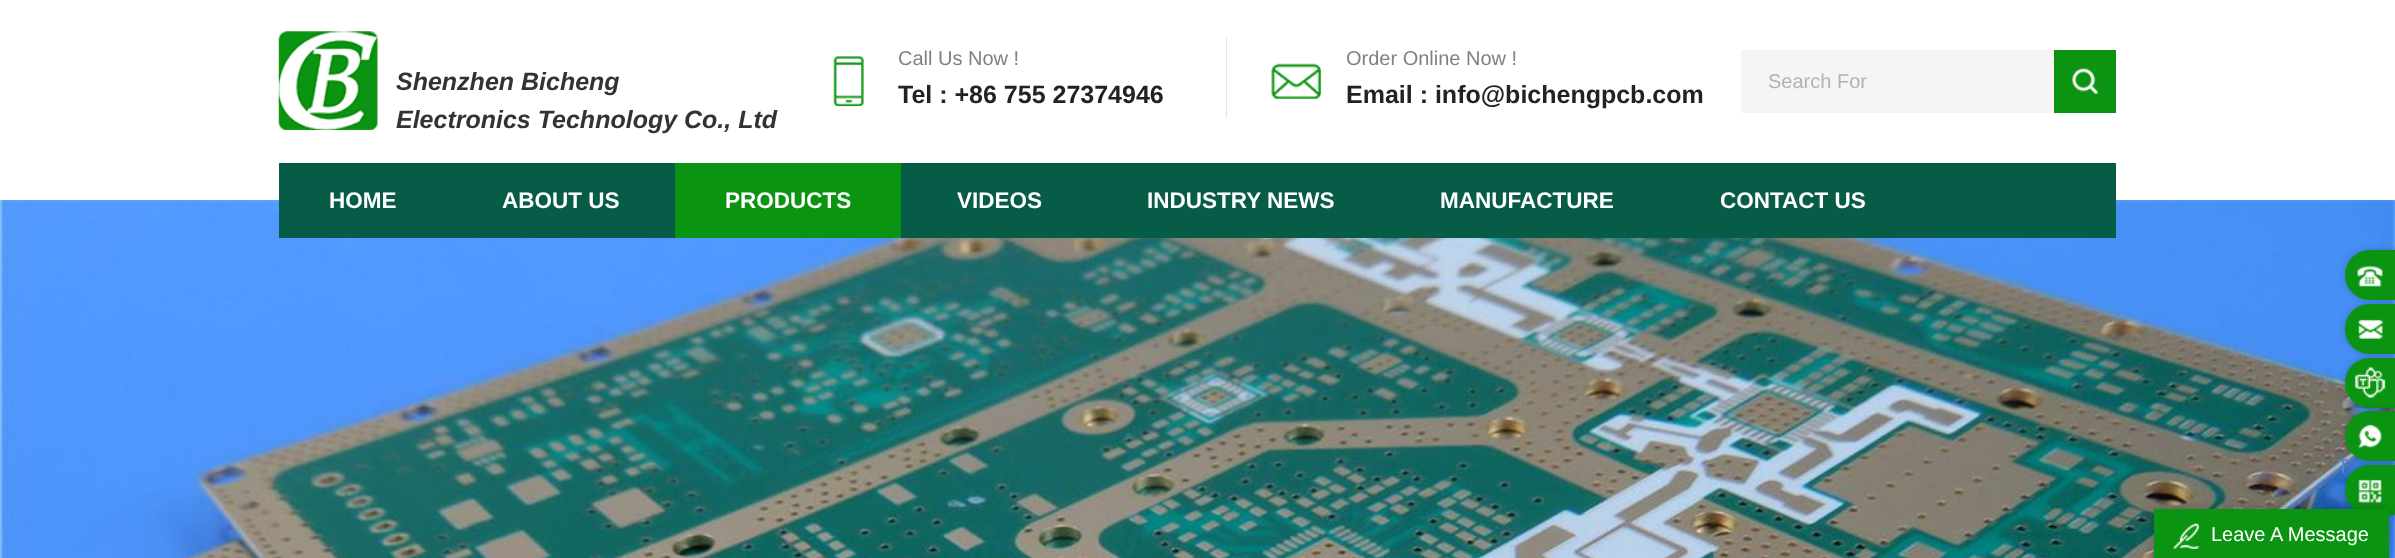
(async () => {
    const canvas = document.querySelector("canvas");
    canvas.width = 2395;
    canvas.height = 558;
    const context = canvas.getContext("2d");
    context.miterLimit = 4;
    context.fontKerning = "normal";
    function write(s, x, y, font, color) {
        context.font = font;
        context.fillStyle = color;
        context.fillText(s, x, y);
    }
    function block(x, y, w, h, color) {
        context.fillStyle = color;
        context.fillRect(x, y, w, h);
    }
    async function photo(src, x, y, w, h) {
        const img = new Image();
        img.src = src;
        await img.decode();
        context.drawImage(img, x, y, w, h);
    }

    block(0, 0, 2395, 558, "rgb(255, 255, 255)");
    await photo("media/1.png", 278, 31, 100, 99);
    write("Shenzhen Bicheng", 396, 90, "italic bold 25px Liberation Sans", "rgb(51, 51, 51)");
    write("Electronics Technology Co., Ltd", 396, 128, "italic bold 25px Liberation Sans", "rgb(51, 51, 51)");
    block(1226, 38, 1, 80, "rgb(229, 229, 229)");
    await photo("media/2.png", 833, 56, 31, 51);
    write("Call Us Now !", 898, 65, "20px Liberation Sans", "rgb(128, 128, 128)");
    write("Tel : +86 755 27374946", 898, 103, "bold 25px Liberation Sans", "rgb(34, 34, 34)");
    write("Order Online Now !", 1346, 65, "20px Liberation Sans", "rgb(128, 128, 128)");
    await photo("media/3.png", 1271, 63, 51, 36);
    write("Email : info@bichengpcb.com", 1346, 103, "bold 25px Liberation Sans", "rgb(34, 34, 34)");
    block(1741, 50, 313, 63, "rgb(245, 245, 245)");
    write("Search For", 1768, 88, "20px Liberation Sans", "rgb(178, 178, 178)");
    block(2054, 50, 62, 63, "rgb(11, 148, 18)");
    await photo("media/4.png", 2072, 68, 26, 26);
    await photo("media/5.png", 0, 200, 2395, 358);
    block(279, 163, 1837, 75, "rgb(7, 92, 71)");
    write("HOME", 329, 208, "bold 22.5px Liberation Sans", "rgb(255, 255, 255)");
    write("ABOUT US", 502, 208, "bold 22.5px Liberation Sans", "rgb(255, 255, 255)");
    block(675, 163, 226, 75, "rgb(11, 148, 18)");
    write("PRODUCTS", 725, 208, "bold 22.5px Liberation Sans", "rgb(255, 255, 255)");
    write("VIDEOS", 957, 208, "bold 22.5px Liberation Sans", "rgb(255, 255, 255)");
    write("INDUSTRY NEWS", 1147, 208, "bold 22.5px Liberation Sans", "rgb(255, 255, 255)");
    write("MANUFACTURE", 1440, 208, "bold 22.5px Liberation Sans", "rgb(255, 255, 255)");
    write("CONTACT US", 1720, 208, "bold 22.5px Liberation Sans", "rgb(255, 255, 255)");
    context.fillStyle = "rgba(0, 0, 0, 0.2)";
    context.filter = "blur(3px)";
    context.beginPath();
    context.roundRect(2345, 250, 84, 50, 25);
    context.fill();
    context.filter = "none";
    context.fillStyle = "rgb(11, 148, 18)";
    context.beginPath();
    context.moveTo(2370, 250);
    context.lineTo(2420, 250);
    context.lineTo(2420, 300);
    context.lineTo(2370, 300);
    context.bezierCurveTo(2356, 300, 2345, 289, 2345, 275);
    context.bezierCurveTo(2345, 261, 2356, 250, 2370, 250);
    context.closePath();
    context.fill();
    await photo("media/6.png", 2357, 266, 26, 21);
    context.fillStyle = "rgba(0, 0, 0, 0.2)";
    context.filter = "blur(3px)";
    context.beginPath();
    context.roundRect(2345, 304, 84, 50, 25);
    context.fill();
    context.filter = "none";
    context.fillStyle = "rgb(11, 148, 18)";
    context.beginPath();
    context.moveTo(2370, 304);
    context.lineTo(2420, 304);
    context.lineTo(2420, 354);
    context.lineTo(2370, 354);
    context.bezierCurveTo(2356, 354, 2345, 343, 2345, 329);
    context.bezierCurveTo(2345, 315, 2356, 304, 2370, 304);
    context.closePath();
    context.fill();
    await photo("media/7.png", 2358, 319, 25, 20);
    context.fillStyle = "rgba(0, 0, 0, 0.2)";
    context.filter = "blur(3px)";
    context.beginPath();
    context.roundRect(2345, 358, 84, 50, 25);
    context.fill();
    context.filter = "none";
    context.fillStyle = "rgb(11, 148, 18)";
    context.beginPath();
    context.moveTo(2370, 358);
    context.lineTo(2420, 358);
    context.lineTo(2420, 408);
    context.lineTo(2370, 408);
    context.bezierCurveTo(2356, 408, 2345, 397, 2345, 383);
    context.bezierCurveTo(2345, 369, 2356, 358, 2370, 358);
    context.closePath();
    context.fill();
    await photo("media/8.png", 2354, 367, 32, 31);
    context.fillStyle = "rgba(0, 0, 0, 0.2)";
    context.filter = "blur(3px)";
    context.beginPath();
    context.roundRect(2345, 411, 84, 50, 25);
    context.fill();
    context.filter = "none";
    write("T", 2337, 473, "20px Liberation Sans", "rgb(85, 135, 209)");
    context.fillStyle = "rgb(11, 148, 18)";
    context.beginPath();
    context.moveTo(2370, 411);
    context.lineTo(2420, 411);
    context.lineTo(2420, 461);
    context.lineTo(2370, 461);
    context.bezierCurveTo(2356, 461, 2345, 450, 2345, 436);
    context.bezierCurveTo(2345, 422, 2356, 411, 2370, 411);
    context.closePath();
    context.fill();
    await photo("media/9.png", 2358, 424, 24, 24);
    context.fillStyle = "rgba(0, 0, 0, 0.2)";
    context.filter = "blur(3px)";
    context.beginPath();
    context.roundRect(2345, 465, 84, 50, 25);
    context.fill();
    context.filter = "none";
    context.fillStyle = "rgb(11, 148, 18)";
    context.beginPath();
    context.moveTo(2370, 465);
    context.lineTo(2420, 465);
    context.lineTo(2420, 515);
    context.lineTo(2370, 515);
    context.bezierCurveTo(2356, 515, 2345, 504, 2345, 490);
    context.bezierCurveTo(2345, 476, 2356, 465, 2370, 465);
    context.closePath();
    context.fill();
    await photo("media/10.png", 2358, 479, 24, 24);
    context.fillStyle = "rgba(0, 0, 0, 0.2)";
    context.filter = "blur(6px)";
    context.beginPath();
    context.rect(2154, 509, 235, 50);
    context.fill();
    context.filter = "none";
    block(2154, 509, 235, 49, "rgb(11, 148, 18)");
    await photo("media/11.png", 2173, 523, 26, 26);
    write("Leave A Message", 2211, 541, "20px Liberation Sans", "rgb(255, 255, 255)");
})();
